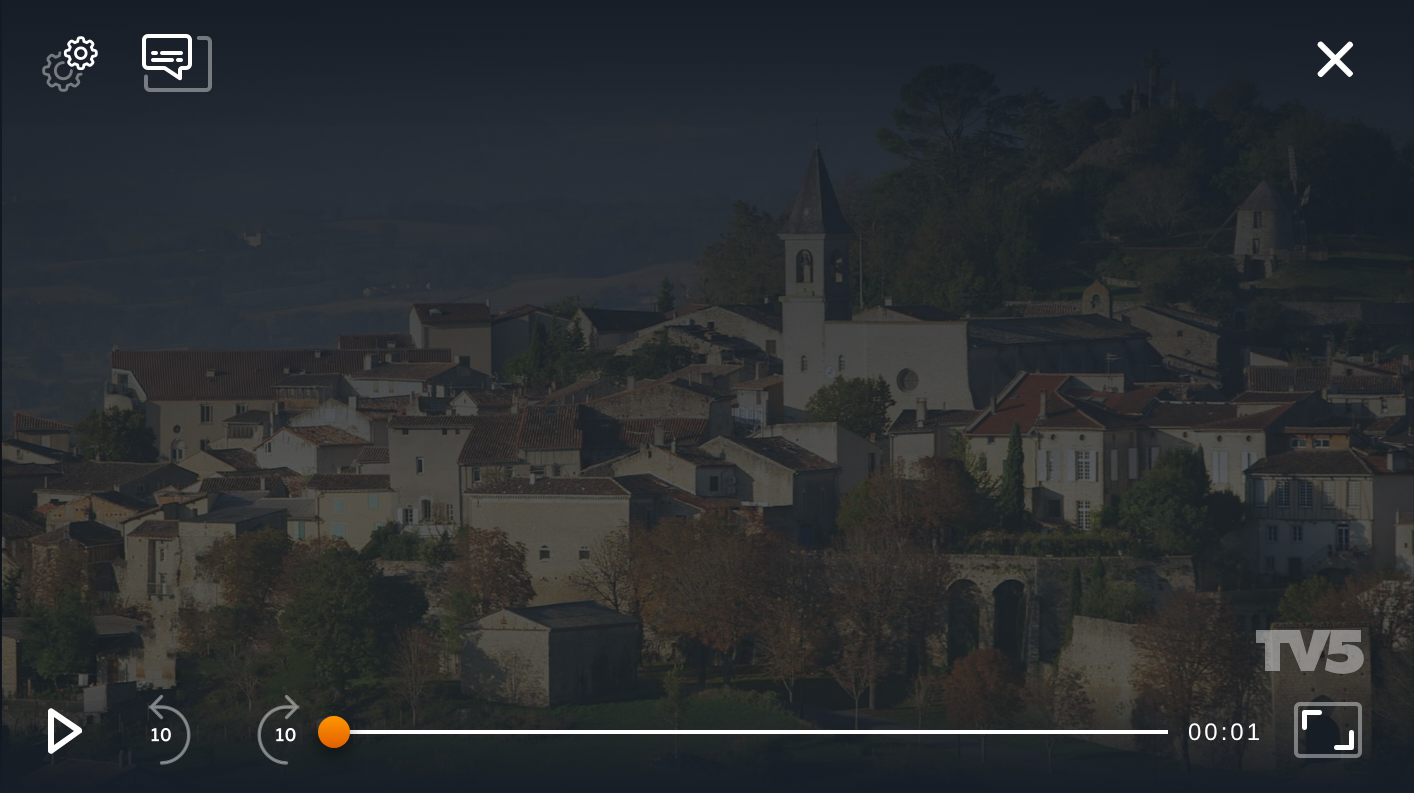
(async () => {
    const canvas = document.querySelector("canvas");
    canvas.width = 1414;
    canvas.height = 793;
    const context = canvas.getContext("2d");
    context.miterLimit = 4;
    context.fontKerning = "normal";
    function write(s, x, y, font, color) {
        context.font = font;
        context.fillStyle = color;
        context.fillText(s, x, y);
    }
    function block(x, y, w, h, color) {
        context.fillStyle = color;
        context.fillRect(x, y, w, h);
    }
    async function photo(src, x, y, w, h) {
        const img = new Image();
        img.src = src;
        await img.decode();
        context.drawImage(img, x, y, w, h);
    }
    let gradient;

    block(0, 0, 1414, 793, "rgb(15, 20, 27)");
    await photo("media/2.png", 1, 0, 1413, 793);
    gradient = context.createLinearGradient(707, 136, 707, 0);
    gradient.addColorStop(0, "rgba(15, 20, 27, 0)");
    gradient.addColorStop(1, "rgba(15, 20, 27, 0.7)");
    context.fillStyle = gradient;
    context.fillRect(1, 0, 1413, 126);
    gradient = context.createLinearGradient(707, 0, 707, 500);
    gradient.addColorStop(0, "rgba(22, 29, 39, 0.7)");
    gradient.addColorStop(1, "rgba(22, 29, 39, 0)");
    context.fillStyle = gradient;
    context.fillRect(0, 0, 1414, 471);
    await photo("media/1.png", 1317, 41, 37, 37);
    context.fillStyle = "rgba(255, 255, 255, 0.41)";
    context.beginPath();
    context.moveTo(1331, 630);
    context.lineTo(1361, 630);
    context.lineTo(1361, 642);
    context.lineTo(1342, 642);
    context.lineTo(1342, 646);
    context.bezierCurveTo(1344, 644, 1349, 644, 1352, 645);
    context.bezierCurveTo(1363, 646, 1368, 660, 1360, 668);
    context.bezierCurveTo(1352, 676, 1335, 675, 1325, 670);
    context.lineTo(1327, 658);
    context.bezierCurveTo(1332, 661, 1341, 664, 1346, 661);
    context.bezierCurveTo(1347, 660, 1348, 659, 1348, 658);
    context.bezierCurveTo(1348, 651, 1331, 654, 1328, 655);
    context.closePath();
    context.moveTo(1256, 643);
    context.lineTo(1256, 630);
    context.lineTo(1300, 630);
    context.lineTo(1307, 655);
    context.lineTo(1314, 630);
    context.lineTo(1331, 630);
    context.lineTo(1314, 671);
    context.lineTo(1301, 671);
    context.lineTo(1289, 643);
    context.lineTo(1280, 643);
    context.lineTo(1280, 671);
    context.lineTo(1265, 671);
    context.lineTo(1265, 643);
    context.closePath();
    context.fill("evenodd");
    await photo("media/3.png", 42, 36, 56, 56);
    await photo("media/4.png", 142, 34, 70, 58);
    gradient = context.createLinearGradient(707, 682, 707, 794);
    gradient.addColorStop(0, "rgba(22, 29, 39, 0)");
    gradient.addColorStop(1, "rgb(22, 29, 39)");
    context.fillStyle = gradient;
    context.fillRect(0, 687, 1414, 106);
    context.fillStyle = "rgb(255, 255, 255)";
    context.beginPath();
    context.moveTo(81, 728);
    context.bezierCurveTo(82, 729, 82, 730, 82, 731);
    context.bezierCurveTo(82, 732, 82, 733, 81, 733);
    context.lineTo(53, 753);
    context.bezierCurveTo(51, 755, 48, 753, 48, 751);
    context.lineTo(48, 711);
    context.bezierCurveTo(48, 709, 51, 707, 53, 709);
    context.closePath();
    context.moveTo(54, 717);
    context.lineTo(54, 745);
    context.lineTo(74, 731);
    context.closePath();
    context.fill();
    await photo("media/5.png", 148, 694, 43, 71);
    await photo("media/6.png", 257, 694, 43, 71);
    block(349, 730, 819, 4, "rgb(255, 255, 255)");
    context.fillStyle = "rgba(0, 0, 0, 0.5)";
    context.filter = "blur(9px)";
    context.beginPath();
    context.roundRect(318, 724, 32, 32, 16);
    context.fill();
    context.filter = "none";
    gradient = context.createLinearGradient(334, 716, 334, 748);
    gradient.addColorStop(0, "rgb(255, 151, 0)");
    gradient.addColorStop(1, "rgb(226, 95, 0)");
    context.fillStyle = gradient;
    context.beginPath();
    context.arc(334, 732, 16, 0, Math.PI * 2);
    context.fill();
    context.letterSpacing = "3px";
    write("00:01", 1188, 740, "24px Liberation Sans", "rgb(255, 255, 255)");
    await photo("media/7.png", 1294, 702, 68, 56);
})();
